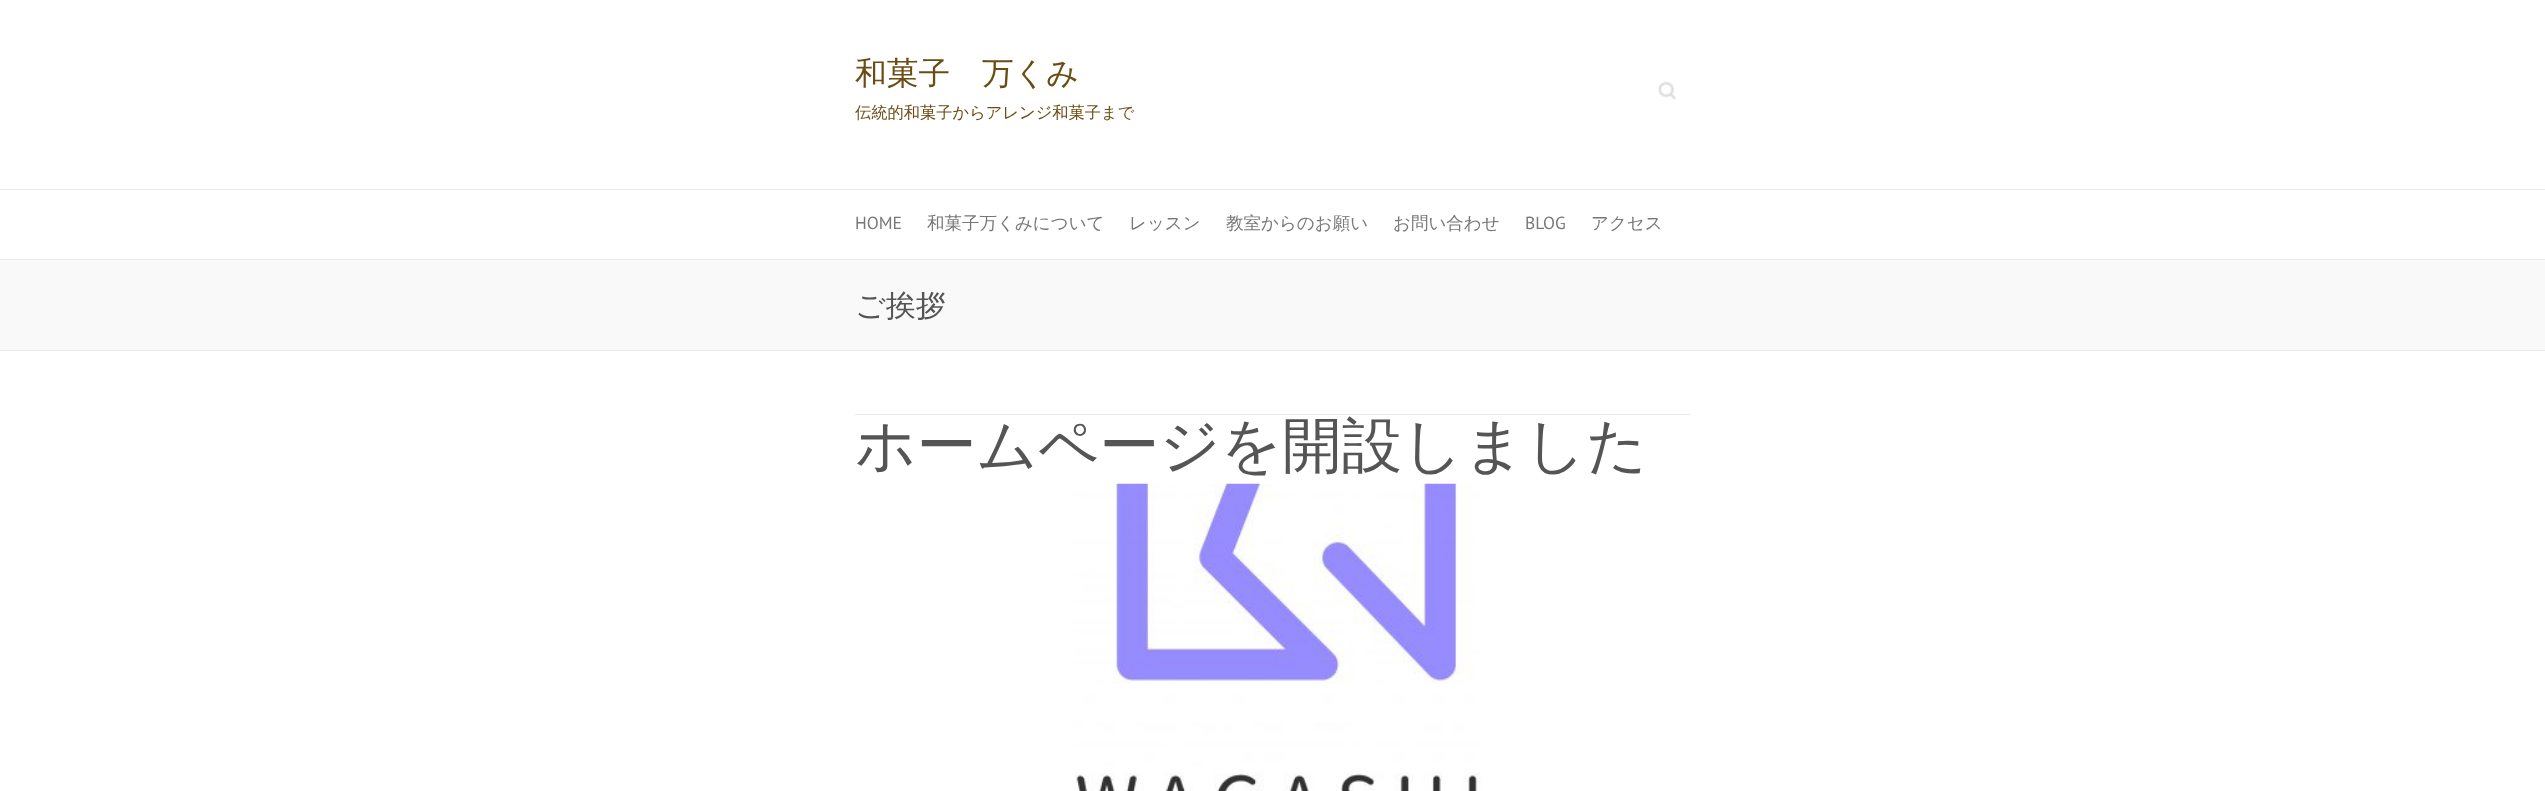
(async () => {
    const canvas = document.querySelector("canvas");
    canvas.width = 2545;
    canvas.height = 791;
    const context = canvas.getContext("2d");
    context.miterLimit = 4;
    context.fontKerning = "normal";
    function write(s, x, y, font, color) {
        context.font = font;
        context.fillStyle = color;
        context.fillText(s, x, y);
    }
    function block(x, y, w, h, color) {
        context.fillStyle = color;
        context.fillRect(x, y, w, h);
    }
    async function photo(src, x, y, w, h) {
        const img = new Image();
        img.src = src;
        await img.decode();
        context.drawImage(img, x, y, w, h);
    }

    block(0, 0, 2545, 791, "rgb(255, 255, 255)");
    write("和菓子　万くみ", 855, 84, "500 31.75px WenQuanYi Zen Hei", "rgb(107, 77, 20)");
    write("伝統的和菓子からアレンジ和菓子まで", 855, 118, "500 16.25px WenQuanYi Zen Hei", "rgb(107, 77, 20)");
    await photo("media/1.png", 1658, 81, 19, 19);
    block(0, 189, 2545, 1, "rgb(234, 234, 234)");
    block(0, 259, 2545, 1, "rgb(234, 234, 234)");
    write("HOME", 855, 229, "17.5px PT Sans", "rgb(119, 119, 119)");
    write("和菓子万くみについて", 927, 229, "500 17.5px WenQuanYi Zen Hei", "rgb(119, 119, 119)");
    write("レッスン", 1129, 229, "500 17.5px WenQuanYi Zen Hei", "rgb(119, 119, 119)");
    write("教室からのお願い", 1226, 229, "500 17.5px WenQuanYi Zen Hei", "rgb(119, 119, 119)");
    write("お問い合わせ", 1393, 229, "500 17.5px WenQuanYi Zen Hei", "rgb(119, 119, 119)");
    write("BLOG", 1525, 229, "17.5px PT Sans", "rgb(119, 119, 119)");
    write("アクセス", 1591, 229, "500 17.5px WenQuanYi Zen Hei", "rgb(119, 119, 119)");
    block(0, 260, 2545, 90, "rgb(249, 249, 249)");
    block(0, 350, 2545, 1, "rgb(234, 234, 234)");
    write("ご挨拶", 855, 316, "500 30px WenQuanYi Zen Hei", "rgb(85, 85, 85)");
    block(855, 414, 835, 1, "rgb(234, 234, 234)");
    write("ホームページを開設しました", 855, 466, "500 60px WenQuanYi Zen Hei", "rgb(85, 85, 85)");
    await photo("media/2.png", 1074, 483, 408, 308);
})();
